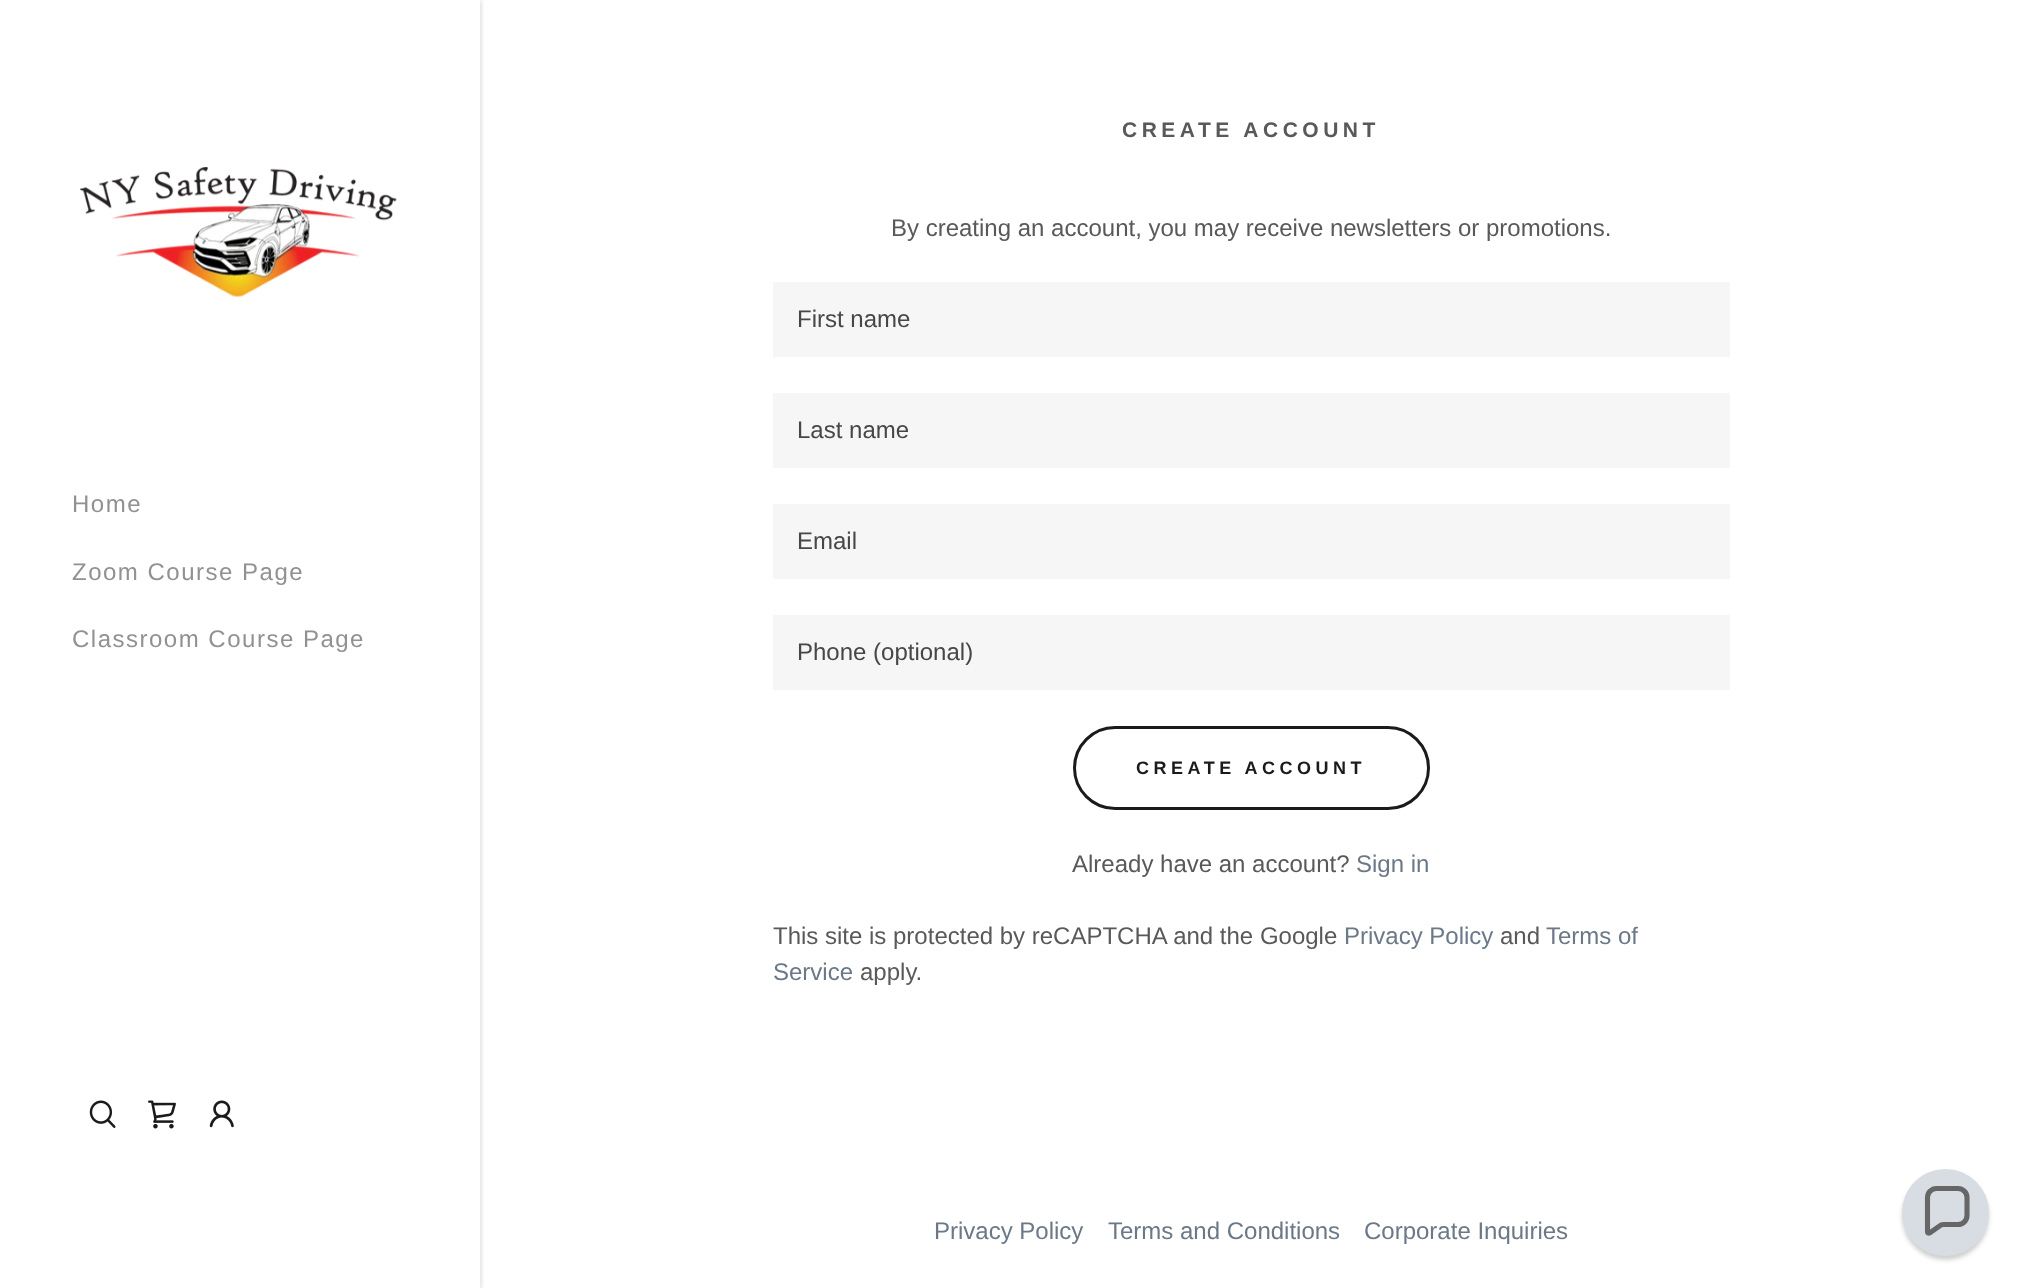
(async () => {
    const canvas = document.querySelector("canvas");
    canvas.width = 2022;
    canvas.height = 1288;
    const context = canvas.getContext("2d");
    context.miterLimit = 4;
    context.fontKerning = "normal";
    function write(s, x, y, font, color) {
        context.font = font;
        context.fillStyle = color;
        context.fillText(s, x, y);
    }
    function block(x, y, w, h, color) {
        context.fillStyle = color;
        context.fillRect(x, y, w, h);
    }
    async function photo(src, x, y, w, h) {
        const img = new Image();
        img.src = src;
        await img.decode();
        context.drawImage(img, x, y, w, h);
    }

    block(0, 0, 2022, 1288, "rgb(255, 255, 255)");
    context.save();
    context.beginPath();
    context.rect(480, 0, 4, 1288);
    context.clip();
    context.fillStyle = "rgba(0, 0, 0, 0.2)";
    context.filter = "blur(3px)";
    context.beginPath();
    context.rect(0, 0, 480, 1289);
    context.fill();
    context.filter = "none";
    context.restore();
    await photo("media/1.png", 80, 167, 317, 131);
    context.letterSpacing = "1.5px";
    write("Home", 72, 512, "24px Liberation Sans", "rgb(145, 145, 145)");
    write("Zoom Course Page", 72, 580, "24px Liberation Sans", "rgb(145, 145, 145)");
    write("Classroom Course Page", 72, 647, "24px Liberation Sans", "rgb(145, 145, 145)");
    await photo("media/2.png", 89, 1100, 27, 28);
    await photo("media/3.png", 148, 1100, 28, 29);
    await photo("media/4.png", 209, 1100, 25, 28);
    context.letterSpacing = "4.5px";
    write("CREATE ACCOUNT", 1122, 137, "bold 21px Liberation Sans", "rgb(89, 89, 89)");
    context.letterSpacing = "0px";
    write("By creating an account, you may receive newsletters or promotions.", 891, 236, "24px Liberation Sans", "rgb(89, 89, 89)");
    block(773, 282, 957, 75, "rgb(246, 246, 246)");
    write("First name", 797, 327, "24px Liberation Sans", "rgb(71, 71, 71)");
    block(773, 393, 957, 75, "rgb(246, 246, 246)");
    write("Last name", 797, 438, "24px Liberation Sans", "rgb(71, 71, 71)");
    block(773, 504, 957, 75, "rgb(246, 246, 246)");
    write("Email", 797, 549, "24px Liberation Sans", "rgb(71, 71, 71)");
    block(773, 615, 957, 75, "rgb(246, 246, 246)");
    write("Phone (optional)", 797, 660, "24px Liberation Sans", "rgb(71, 71, 71)");
    context.beginPath();
    context.roundRect(1074.5, 727.5, 354, 81, 40.5);
    context.strokeStyle = "rgb(27, 27, 27)";
    context.lineWidth = 3;
    context.stroke();
    context.letterSpacing = "4.5px";
    write("CREATE ACCOUNT", 1136, 774, "bold 18px Liberation Sans", "rgb(27, 27, 27)");
    context.letterSpacing = "0px";
    write("Already have an account?", 1072, 872, "24px Liberation Sans", "rgb(89, 89, 89)");
    write("Sign in", 1356, 872, "24px Liberation Sans", "rgb(107, 120, 135)");
    write("This site is protected by reCAPTCHA and the Google", 773, 944, "24px Liberation Sans", "rgb(89, 89, 89)");
    write("Privacy Policy", 1344, 944, "24px Liberation Sans", "rgb(107, 120, 135)");
    write("and", 1500, 944, "24px Liberation Sans", "rgb(89, 89, 89)");
    write("Terms of", 1546, 944, "24px Liberation Sans", "rgb(107, 120, 135)");
    write("Service", 773, 980, "24px Liberation Sans", "rgb(107, 120, 135)");
    write("apply.", 860, 980, "24px Liberation Sans", "rgb(89, 89, 89)");
    write("Privacy Policy", 934, 1239, "24px Liberation Sans", "rgb(107, 120, 135)");
    write("Terms and Conditions", 1108, 1239, "24px Liberation Sans", "rgb(107, 120, 135)");
    write("Corporate Inquiries", 1364, 1239, "24px Liberation Sans", "rgb(107, 120, 135)");
    context.fillStyle = "rgba(13, 13, 13, 0.2)";
    context.filter = "blur(2px)";
    context.beginPath();
    context.roundRect(1902, 1173, 87, 87, 43.5);
    context.fill();
    context.filter = "none";
    context.fillStyle = "rgb(216, 221, 227)";
    context.beginPath();
    context.arc(1945.5, 1212.5, 43.5, 0, Math.PI * 2);
    context.fill();
    context.beginPath();
    context.moveTo(1958, 1188.5);
    context.lineTo(1936.5, 1188.5);
    context.bezierCurveTo(1931.5, 1188.5, 1927.5, 1192.5, 1927.5, 1197.5);
    context.lineTo(1927.5, 1232);
    context.bezierCurveTo(1927.5, 1233, 1928.5, 1233.5, 1929.5, 1233);
    context.lineTo(1939.5, 1226);
    context.bezierCurveTo(1940.5, 1225, 1942, 1224.5, 1943.5, 1224.5);
    context.lineTo(1958, 1224.5);
    context.bezierCurveTo(1963, 1224.5, 1967, 1220.5, 1967, 1215.5);
    context.lineTo(1967, 1197.5);
    context.bezierCurveTo(1967, 1192.5, 1963, 1188.5, 1958, 1188.5);
    context.closePath();
    context.strokeStyle = "rgb(102, 102, 102)";
    context.lineWidth = 5.1;
    context.stroke();
})();
